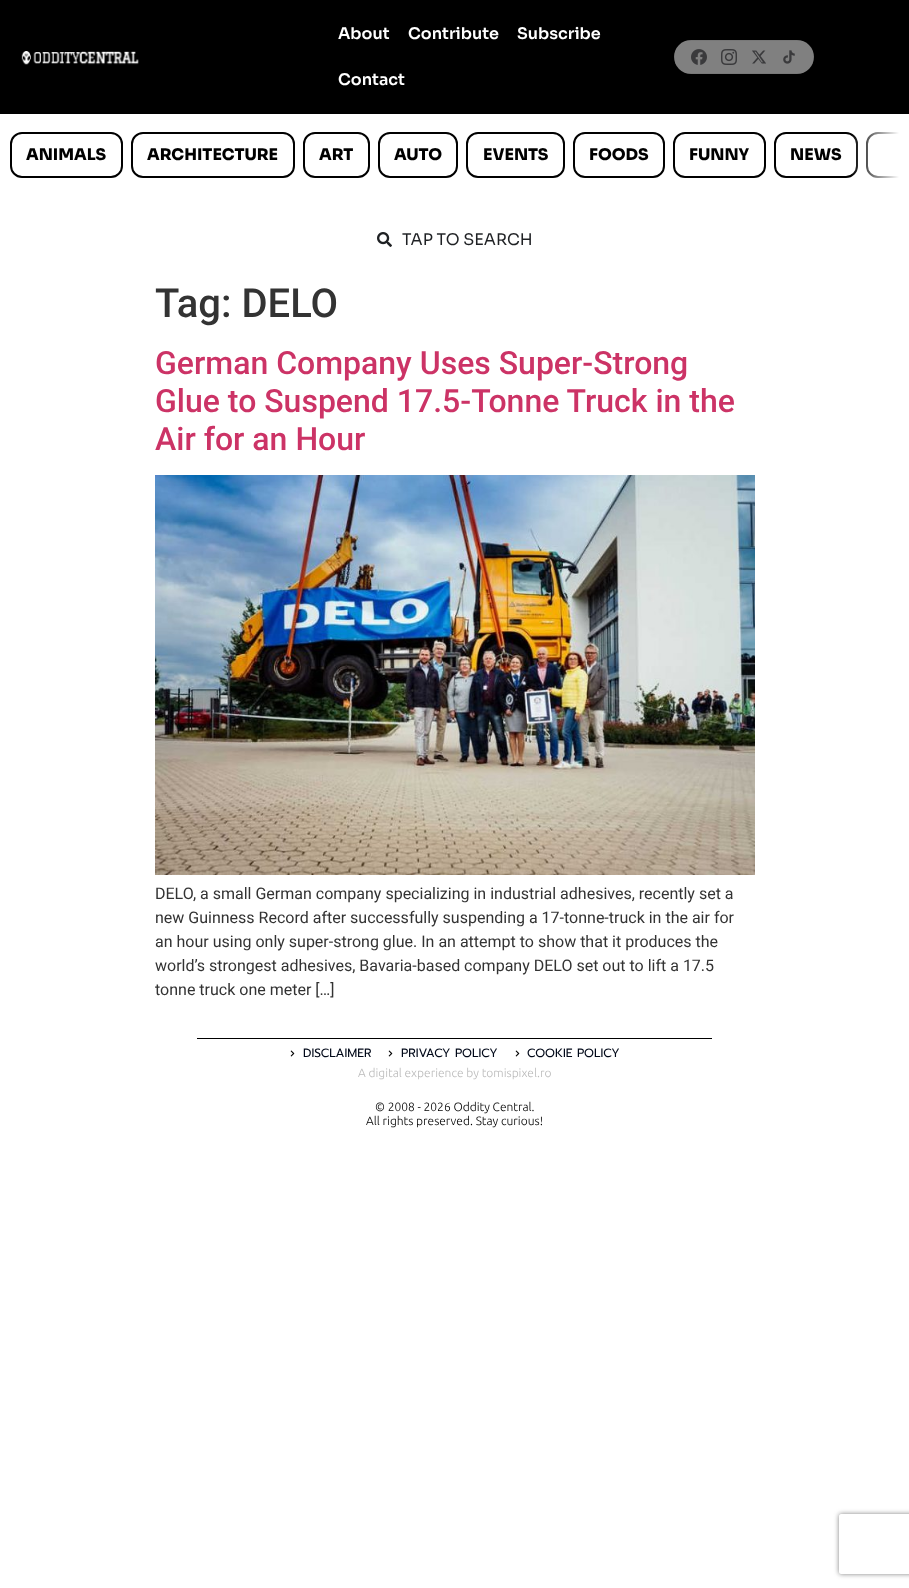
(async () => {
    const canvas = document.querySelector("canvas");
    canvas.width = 909;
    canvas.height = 1588;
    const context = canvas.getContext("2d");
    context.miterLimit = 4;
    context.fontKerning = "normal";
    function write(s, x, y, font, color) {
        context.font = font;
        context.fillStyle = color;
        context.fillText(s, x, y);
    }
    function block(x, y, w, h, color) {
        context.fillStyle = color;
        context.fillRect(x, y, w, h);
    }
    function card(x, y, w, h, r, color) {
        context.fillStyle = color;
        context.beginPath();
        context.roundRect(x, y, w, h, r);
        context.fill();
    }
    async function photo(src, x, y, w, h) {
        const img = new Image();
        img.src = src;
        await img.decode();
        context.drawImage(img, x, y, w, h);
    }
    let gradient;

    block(0, 0, 909, 1588, "rgb(255, 255, 255)");
    block(0, 0, 909, 114, "rgb(0, 0, 0)");
    await photo("media/1.png", 21, 51, 118, 14);
    write("About", 338, 39, "600 16px Sora", "rgb(255, 255, 255)");
    write("Contribute", 408, 39, "600 16px Sora", "rgb(255, 255, 255)");
    write("Subscribe", 517, 39, "600 16px Sora", "rgb(255, 255, 255)");
    write("Contact", 338, 85, "600 16px Sora", "rgb(255, 255, 255)");
    card(674, 40, 140, 34, 17, "rgb(128, 128, 128)");
    context.strokeStyle = "rgba(0, 0, 0, 0.06)";
    context.strokeRect(674.5, 40.5, 139, 33);
    await photo("media/2.png", 691, 49, 16, 16);
    await photo("media/3.png", 721, 49, 16, 16);
    await photo("media/4.png", 752, 50, 14, 14);
    await photo("media/5.png", 783, 50, 12, 14);
    context.beginPath();
    context.roundRect(11, 133, 111, 44, 11);
    context.strokeStyle = "rgb(0, 0, 0)";
    context.lineWidth = 2;
    context.stroke();
    write("ANIMALS", 26, 160, "800 16px Sora", "rgb(0, 0, 0)");
    context.beginPath();
    context.roundRect(132, 133, 162, 44, 11);
    context.stroke();
    write("ARCHITECTURE", 147, 160, "800 16px Sora", "rgb(0, 0, 0)");
    context.beginPath();
    context.roundRect(304, 133, 65, 44, 11);
    context.stroke();
    write("ART", 319, 160, "800 16px Sora", "rgb(0, 0, 0)");
    context.beginPath();
    context.roundRect(379, 133, 78, 44, 11);
    context.stroke();
    write("AUTO", 394, 160, "800 16px Sora", "rgb(0, 0, 0)");
    context.beginPath();
    context.roundRect(467, 133, 97, 44, 11);
    context.stroke();
    write("EVENTS", 483, 160, "800 16px Sora", "rgb(0, 0, 0)");
    context.beginPath();
    context.roundRect(574, 133, 90, 44, 11);
    context.stroke();
    write("FOODS", 589, 160, "800 16px Sora", "rgb(0, 0, 0)");
    context.beginPath();
    context.roundRect(674, 133, 91, 44, 11);
    context.stroke();
    write("FUNNY", 689, 160, "800 16px Sora", "rgb(0, 0, 0)");
    context.beginPath();
    context.roundRect(775, 133, 82, 44, 11);
    context.stroke();
    write("NEWS", 790, 160, "800 16px Sora", "rgb(0, 0, 0)");
    context.save();
    context.beginPath();
    context.rect(10, 128, 889, 54);
    context.clip();
    context.beginPath();
    context.roundRect(867, 133, 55, 44, 11);
    context.stroke();
    context.restore();
    gradient = context.createLinearGradient(899, 155, 851, 155);
    gradient.addColorStop(0, "rgb(255, 255, 255)");
    gradient.addColorStop(1, "rgba(255, 255, 255, 0)");
    context.fillStyle = gradient;
    context.fillRect(852, 132, 47, 46);
    await photo("media/6.png", 377, 232, 15, 15);
    write("TAP TO SEARCH", 402, 245, "16px Sora", "rgb(31, 33, 36)");
    write("Tag: DELO", 155, 317, "500 40px Roboto", "rgb(51, 51, 51)");
    write("German Company Uses Super-Strong", 155, 374, "500 32px Roboto", "rgb(204, 51, 102)");
    write("Glue to Suspend 17.5-Tonne Truck in the", 155, 412, "500 32px Roboto", "rgb(204, 51, 102)");
    write("Air for an Hour", 155, 450, "500 32px Roboto", "rgb(204, 51, 102)");
    await photo("media/7.png", 155, 475, 600, 400);
    write("DELO, a small German company specializing in industrial adhesives, recently set a", 155, 899, "16px Roboto", "rgb(51, 51, 51)");
    write("new Guinness Record after successfully suspending a 17-tonne-truck in the air for", 155, 923, "16px Roboto", "rgb(51, 51, 51)");
    write("an hour using only super-strong glue. In an attempt to show that it produces the", 155, 947, "16px Roboto", "rgb(51, 51, 51)");
    write("world’s strongest adhesives, Bavaria-based company DELO set out to lift a 17.5", 155, 971, "16px Roboto", "rgb(51, 51, 51)");
    write("tonne truck one meter […]", 155, 995, "16px Roboto", "rgb(51, 51, 51)");
    block(197, 1038, 515, 1, "rgb(0, 0, 0)");
    await photo("media/8.png", 290, 1050, 5, 7);
    write("DISCLAIMER", 303, 1057, "12px Prompt", "rgb(0, 8, 24)");
    await photo("media/8.png", 388, 1050, 5, 7);
    write("PRIVACY POLICY", 401, 1057, "12px Prompt", "rgb(0, 8, 24)");
    await photo("media/8.png", 515, 1050, 5, 7);
    write("COOKIE POLICY", 527, 1057, "12px Prompt", "rgb(0, 8, 24)");
    write("A digital experience by tomispixel.ro", 358, 1077, "300 12px Ubuntu", "rgb(187, 187, 187)");
    write("© 2008 - 2026 Oddity Central.", 375, 1111, "300 12px Ubuntu", "rgb(0, 0, 0)");
    write("All rights preserved. Stay curious!", 366, 1125, "300 12px Ubuntu", "rgb(0, 0, 0)");
    context.save();
    context.beginPath();
    context.moveTo(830, 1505);
    context.lineTo(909, 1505);
    context.lineTo(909, 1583);
    context.lineTo(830, 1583);
    context.closePath();
    context.moveTo(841, 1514);
    context.lineTo(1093, 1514);
    context.bezierCurveTo(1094, 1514, 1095, 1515, 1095, 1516);
    context.lineTo(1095, 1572);
    context.bezierCurveTo(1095, 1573, 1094, 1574, 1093, 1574);
    context.lineTo(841, 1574);
    context.bezierCurveTo(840, 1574, 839, 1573, 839, 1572);
    context.lineTo(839, 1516);
    context.bezierCurveTo(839, 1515, 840, 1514, 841, 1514);
    context.closePath();
    context.clip("evenodd");
    context.fillStyle = "rgb(128, 128, 128)";
    context.filter = "blur(2.5px)";
    context.beginPath();
    context.roundRect(839, 1514, 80, 60, 2);
    context.fill();
    context.filter = "none";
    context.restore();
})();
